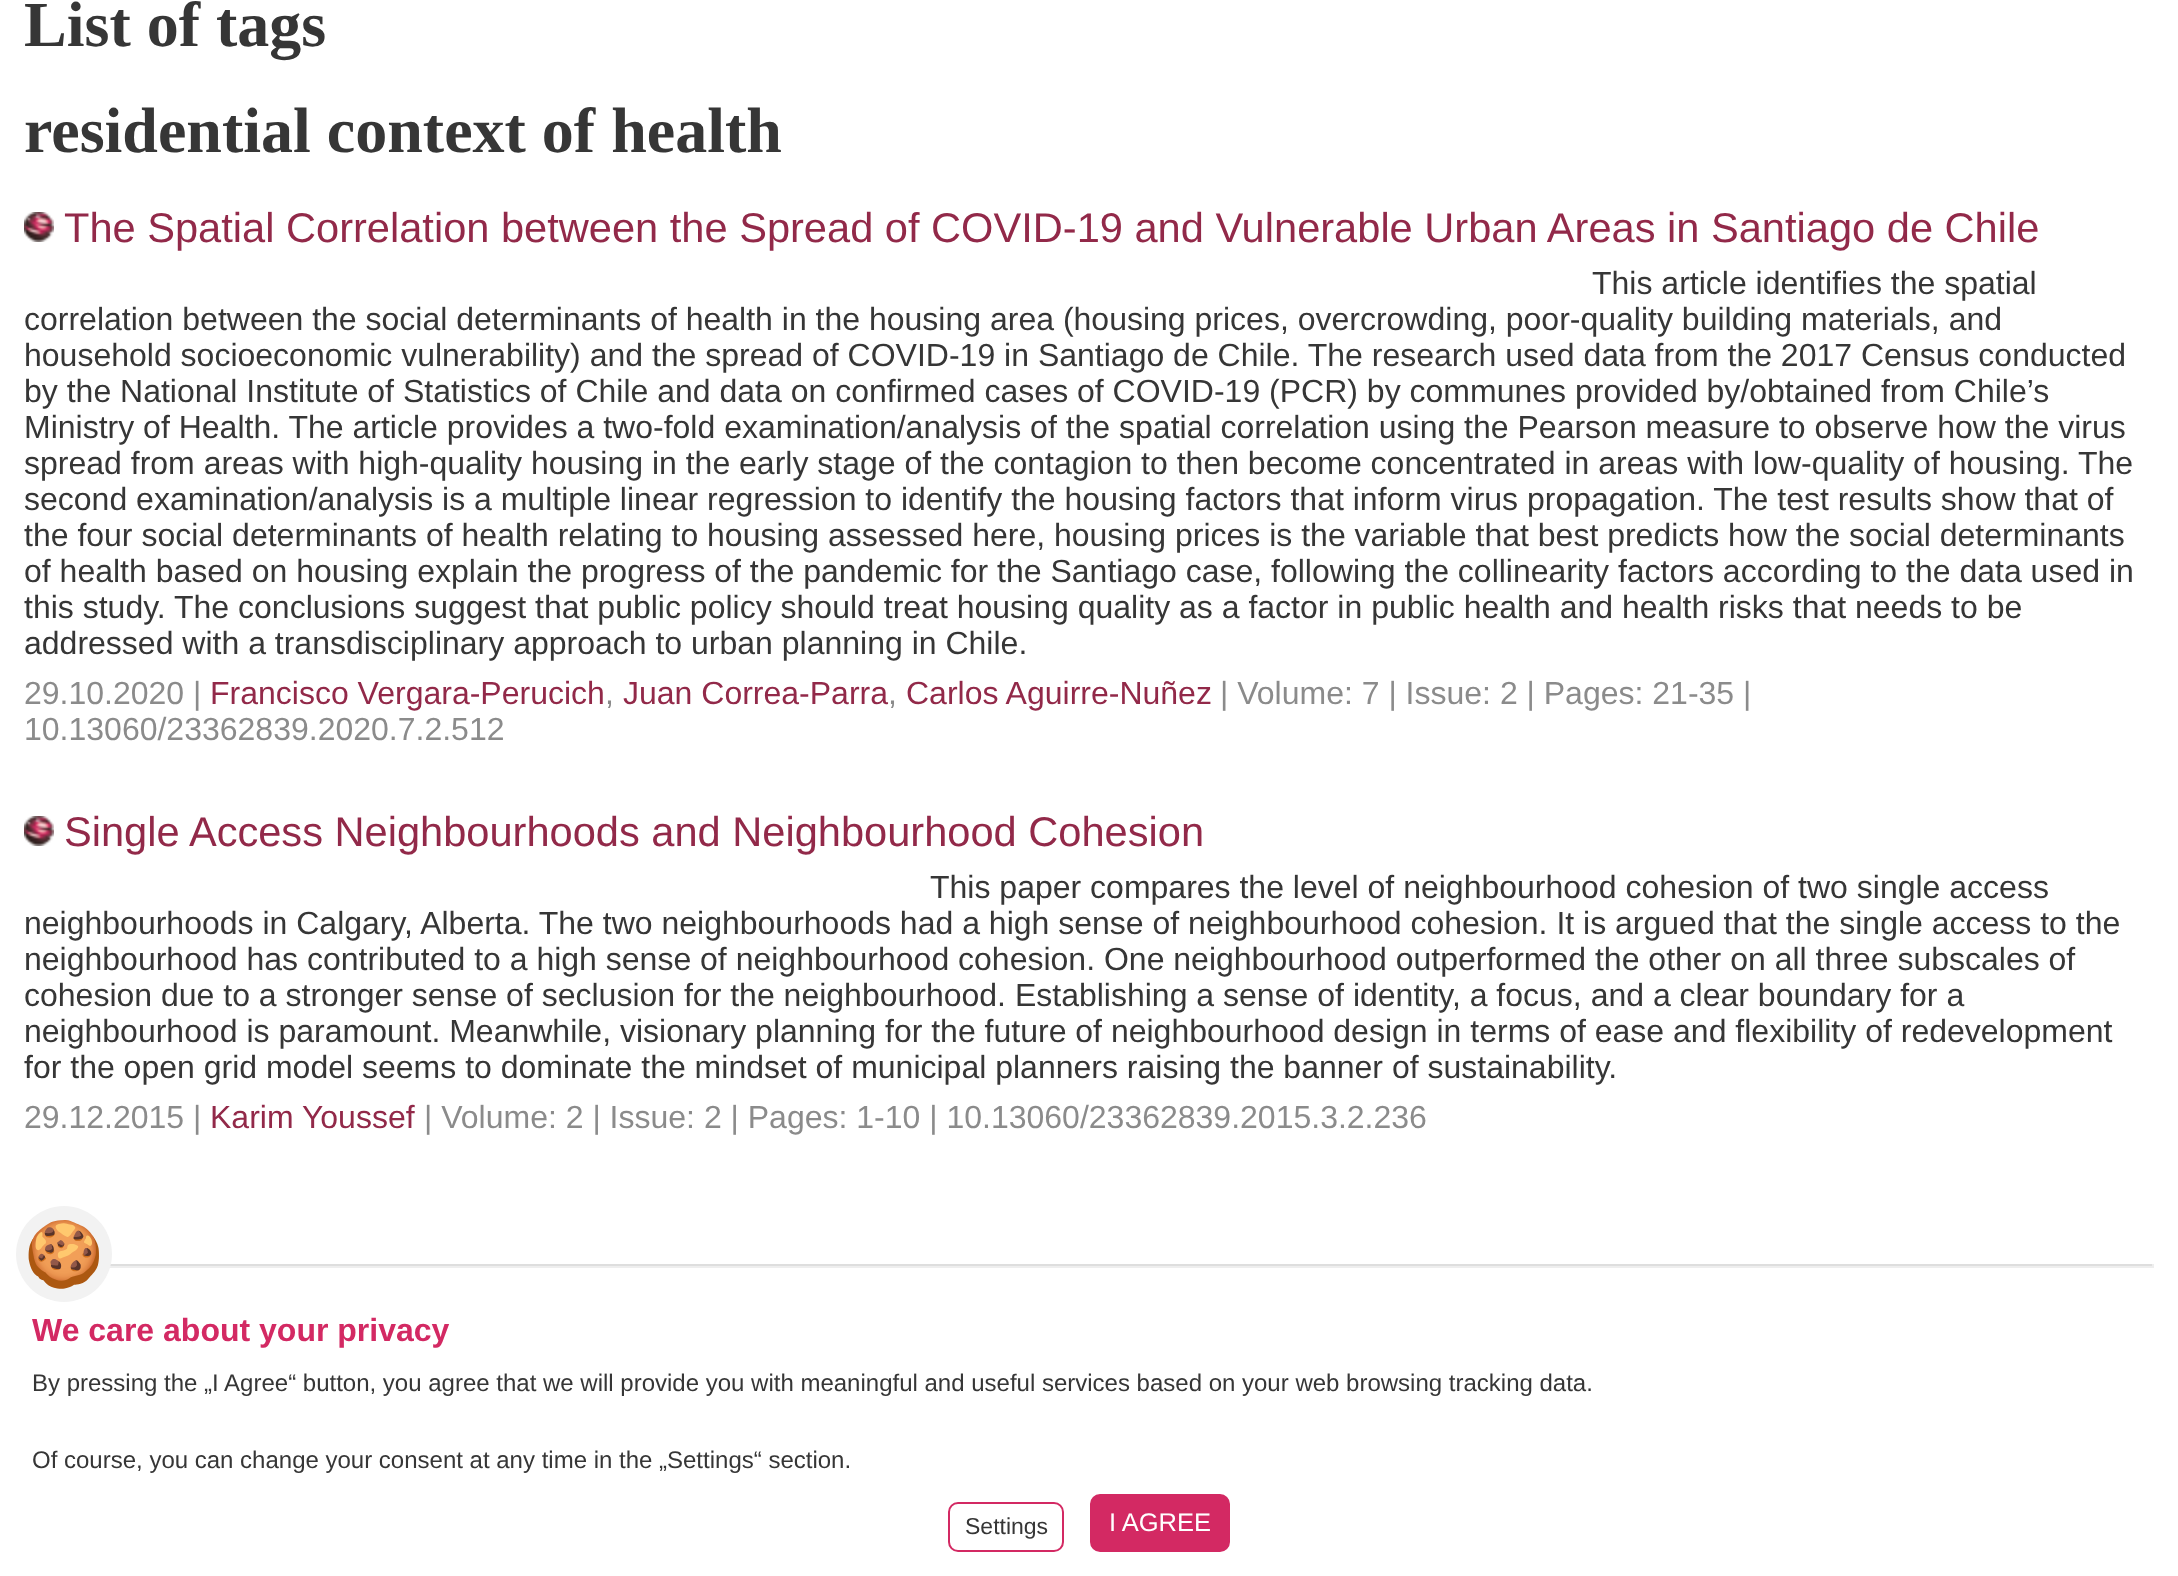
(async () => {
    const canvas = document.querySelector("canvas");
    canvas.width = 2178;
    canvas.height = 1576;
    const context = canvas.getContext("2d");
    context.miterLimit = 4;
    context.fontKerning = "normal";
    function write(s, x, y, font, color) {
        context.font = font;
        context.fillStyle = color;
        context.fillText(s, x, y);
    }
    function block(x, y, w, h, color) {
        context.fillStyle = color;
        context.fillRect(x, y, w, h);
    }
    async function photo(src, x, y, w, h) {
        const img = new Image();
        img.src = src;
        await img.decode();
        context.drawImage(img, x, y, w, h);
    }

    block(0, 0, 2178, 1576, "rgb(255, 255, 255)");
    write("List of tags", 24, 46, "bold 64px Liberation Serif", "rgb(54, 54, 54)");
    write("residential context of health", 24, 152, "bold 64px Liberation Serif", "rgb(54, 54, 54)");
    await photo("media/1.png", 24, 212, 30, 30);
    write("The Spatial Correlation between the Spread of COVID-19 and Vulnerable Urban Areas in Santiago de Chile", 64, 242, "41.6px Liberation Sans", "rgb(146, 41, 73)");
    write("This article identifies the spatial", 1592, 294, "32px Liberation Sans", "rgb(54, 54, 54)");
    write("correlation between the social determinants of health in the housing area (housing prices, overcrowding, poor-quality building materials, and", 24, 330, "32px Liberation Sans", "rgb(54, 54, 54)");
    write("household socioeconomic vulnerability) and the spread of COVID-19 in Santiago de Chile. The research used data from the 2017 Census conducted", 24, 366, "32px Liberation Sans", "rgb(54, 54, 54)");
    write("by the National Institute of Statistics of Chile and data on confirmed cases of COVID-19 (PCR) by communes provided by/obtained from Chile’s", 24, 402, "32px Liberation Sans", "rgb(54, 54, 54)");
    write("Ministry of Health. The article provides a two-fold examination/analysis of the spatial correlation using the Pearson measure to observe how the virus", 24, 438, "32px Liberation Sans", "rgb(54, 54, 54)");
    write("spread from areas with high-quality housing in the early stage of the contagion to then become concentrated in areas with low-quality of housing. The", 24, 474, "32px Liberation Sans", "rgb(54, 54, 54)");
    write("second examination/analysis is a multiple linear regression to identify the housing factors that inform virus propagation. The test results show that of", 24, 510, "32px Liberation Sans", "rgb(54, 54, 54)");
    write("the four social determinants of health relating to housing assessed here, housing prices is the variable that best predicts how the social determinants", 24, 546, "32px Liberation Sans", "rgb(54, 54, 54)");
    write("of health based on housing explain the progress of the pandemic for the Santiago case, following the collinearity factors according to the data used in", 24, 582, "32px Liberation Sans", "rgb(54, 54, 54)");
    write("this study. The conclusions suggest that public policy should treat housing quality as a factor in public health and health risks that needs to be", 24, 618, "32px Liberation Sans", "rgb(54, 54, 54)");
    write("addressed with a transdisciplinary approach to urban planning in Chile.", 24, 654, "32px Liberation Sans", "rgb(54, 54, 54)");
    write("29.10.2020 |", 24, 704, "32px Liberation Sans", "rgb(139, 139, 139)");
    write("Francisco Vergara-Perucich", 210, 704, "32px Liberation Sans", "rgb(146, 41, 73)");
    write(",", 605, 704, "32px Liberation Sans", "rgb(139, 139, 139)");
    write("Juan Correa-Parra", 623, 704, "32px Liberation Sans", "rgb(146, 41, 73)");
    write(",", 888, 704, "32px Liberation Sans", "rgb(139, 139, 139)");
    write("Carlos Aguirre-Nuñez", 906, 704, "32px Liberation Sans", "rgb(146, 41, 73)");
    write("| Volume: 7 | Issue: 2 | Pages: 21-35 |", 1220, 704, "32px Liberation Sans", "rgb(139, 139, 139)");
    write("10.13060/23362839.2020.7.2.512", 24, 740, "32px Liberation Sans", "rgb(139, 139, 139)");
    await photo("media/1.png", 24, 816, 30, 30);
    write("Single Access Neighbourhoods and Neighbourhood Cohesion", 64, 846, "41.6px Liberation Sans", "rgb(146, 41, 73)");
    write("This paper compares the level of neighbourhood cohesion of two single access", 930, 898, "32px Liberation Sans", "rgb(54, 54, 54)");
    write("neighbourhoods in Calgary, Alberta. The two neighbourhoods had a high sense of neighbourhood cohesion. It is argued that the single access to the", 24, 934, "32px Liberation Sans", "rgb(54, 54, 54)");
    write("neighbourhood has contributed to a high sense of neighbourhood cohesion. One neighbourhood outperformed the other on all three subscales of", 24, 970, "32px Liberation Sans", "rgb(54, 54, 54)");
    write("cohesion due to a stronger sense of seclusion for the neighbourhood. Establishing a sense of identity, a focus, and a clear boundary for a", 24, 1006, "32px Liberation Sans", "rgb(54, 54, 54)");
    write("neighbourhood is paramount. Meanwhile, visionary planning for the future of neighbourhood design in terms of ease and flexibility of redevelopment", 24, 1042, "32px Liberation Sans", "rgb(54, 54, 54)");
    write("for the open grid model seems to dominate the mindset of municipal planners raising the banner of sustainability.", 24, 1078, "32px Liberation Sans", "rgb(54, 54, 54)");
    write("29.12.2015 |", 24, 1128, "32px Liberation Sans", "rgb(139, 139, 139)");
    write("Karim Youssef", 210, 1128, "32px Liberation Sans", "rgb(146, 41, 73)");
    write("| Volume: 2 | Issue: 2 | Pages: 1-10 | 10.13060/23362839.2015.3.2.236", 424, 1128, "32px Liberation Sans", "rgb(139, 139, 139)");
    block(110, 1264, 2044, 2, "rgb(222, 222, 222)");
    block(2152, 1264, 2, 4, "rgb(238, 238, 238)");
    block(109, 1266, 2045, 2, "rgb(238, 238, 238)");
    context.fillStyle = "rgb(242, 242, 242)";
    context.beginPath();
    context.arc(64, 1254, 48, 0, Math.PI * 2);
    context.fill();
    write("🍪", 24, 1276, "64px Noto Color Emoji", "rgb(54, 54, 54)");
    write("We care about your privacy", 32, 1341, "bold 32px Liberation Sans", "rgb(211, 41, 99)");
    write("By pressing the „I Agree“ button, you agree that we will provide you with meaningful and useful services based on your web browsing tracking data.", 32, 1391, "24px Liberation Sans", "rgb(54, 54, 54)");
    write("Of course, you can change your consent at any time in the „Settings“ section.", 32, 1468, "24px Liberation Sans", "rgb(54, 54, 54)");
    context.beginPath();
    context.roundRect(949, 1503, 114, 48, 9);
    context.strokeStyle = "rgb(211, 41, 99)";
    context.lineWidth = 2;
    context.stroke();
    write("Settings", 965, 1534, "23px Liberation Sans", "rgb(54, 54, 54)");
    context.fillStyle = "rgb(211, 41, 99)";
    context.beginPath();
    context.roundRect(1091, 1495, 138, 56, 9);
    context.fill();
    context.stroke();
    write("I AGREE", 1109, 1531, "25.5px Liberation Sans", "rgb(255, 255, 255)");
})();
